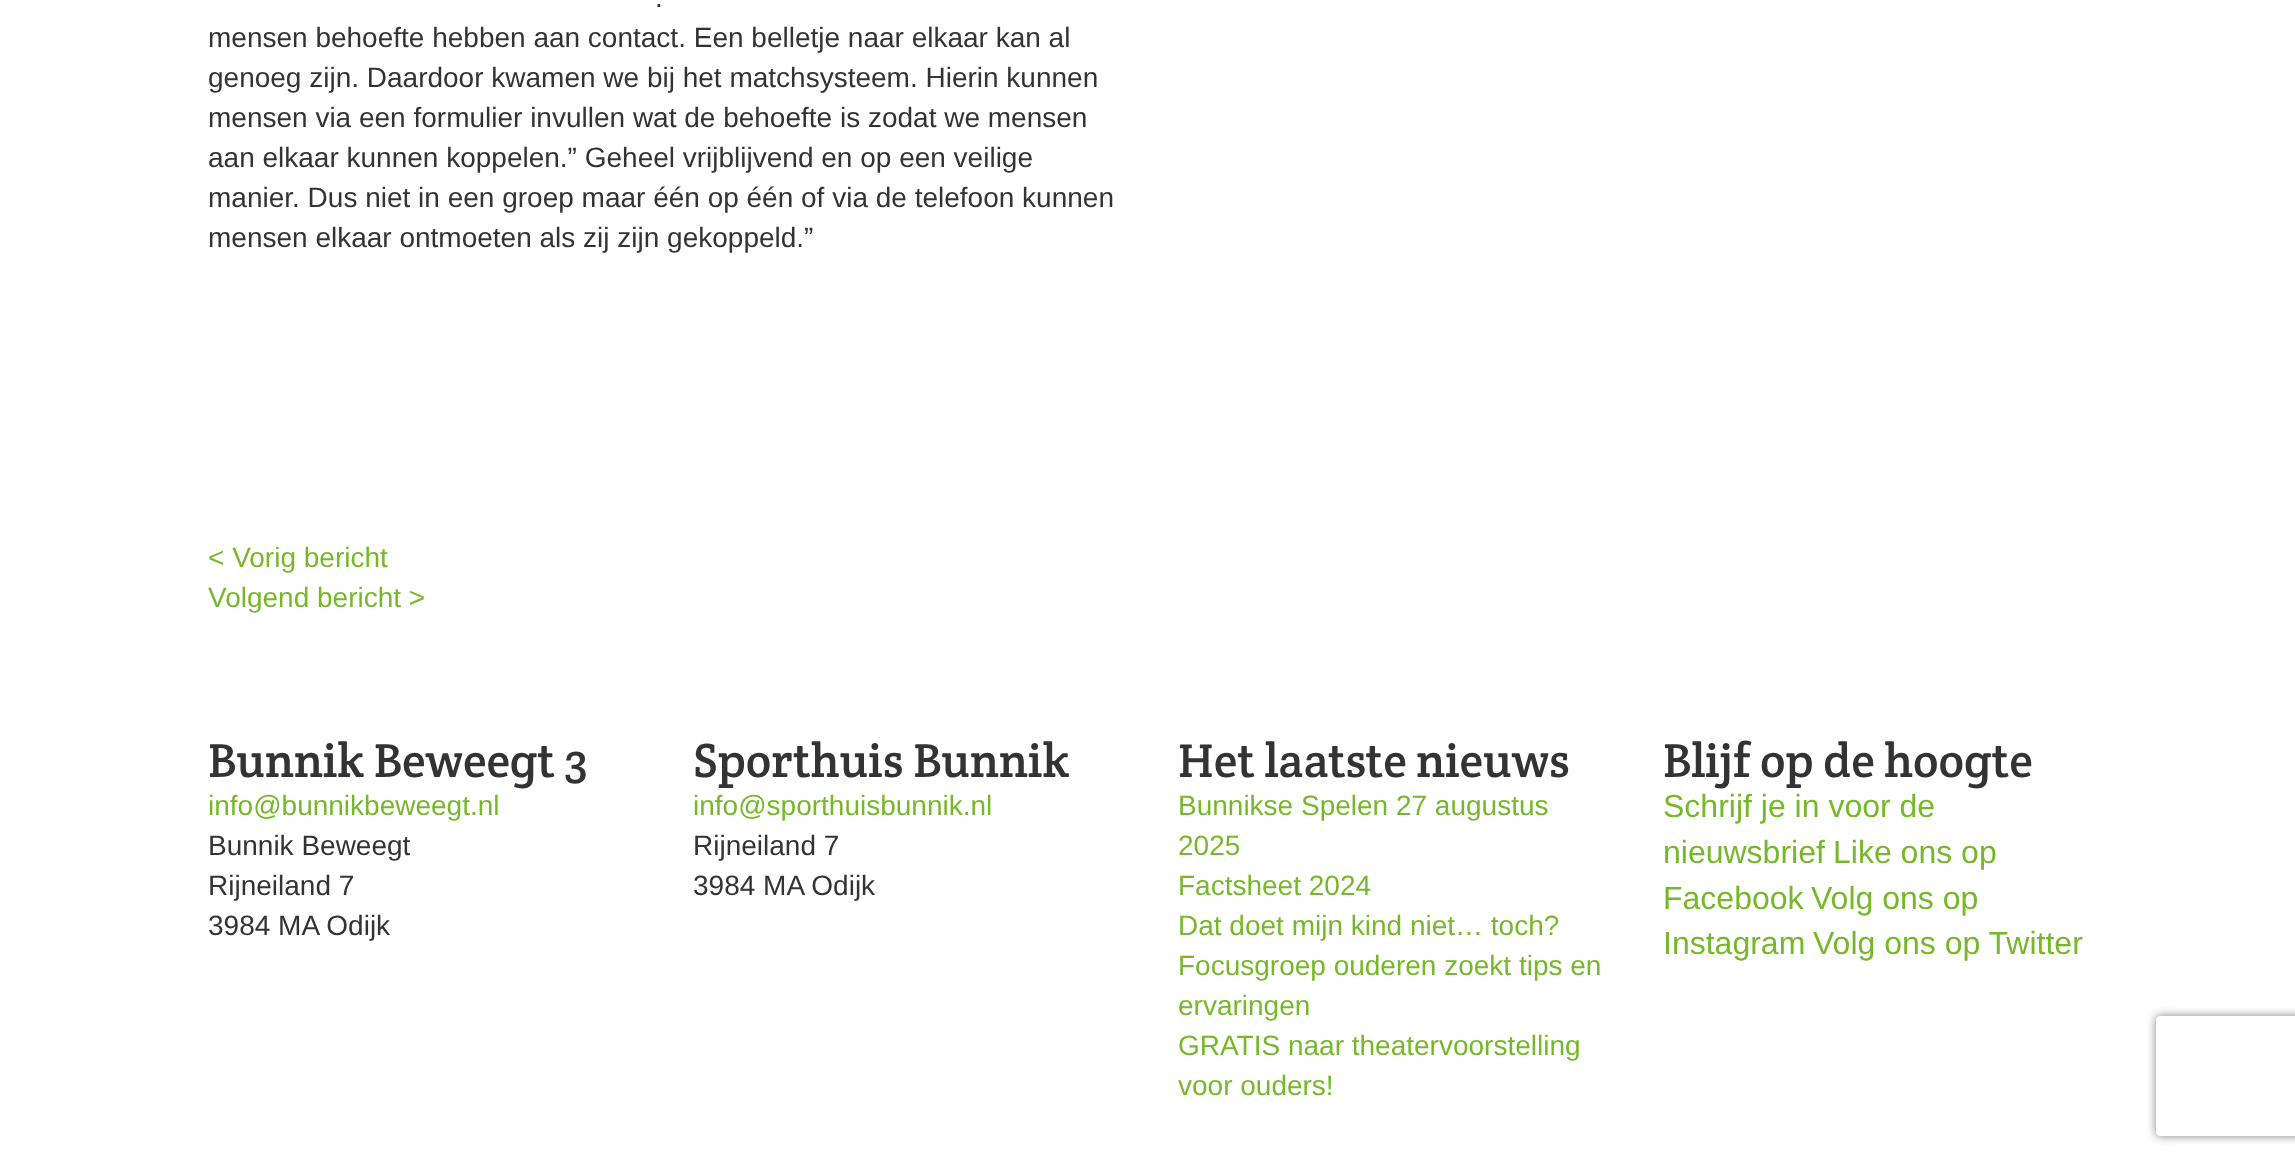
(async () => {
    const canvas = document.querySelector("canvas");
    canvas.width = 2295;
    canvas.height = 1163;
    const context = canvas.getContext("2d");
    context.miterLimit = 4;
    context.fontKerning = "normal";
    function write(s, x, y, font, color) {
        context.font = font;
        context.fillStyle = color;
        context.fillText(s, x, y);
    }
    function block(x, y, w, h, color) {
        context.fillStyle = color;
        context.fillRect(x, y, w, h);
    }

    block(0, 0, 2295, 1163, "rgb(255, 255, 255)");
    write(".", 655, 7, "28px Liberation Sans", "rgb(51, 51, 51)");
    write("mensen behoefte hebben aan contact. Een belletje naar elkaar kan al", 208, 47, "28px Liberation Sans", "rgb(51, 51, 51)");
    write("genoeg zijn. Daardoor kwamen we bij het matchsysteem. Hierin kunnen", 208, 87, "28px Liberation Sans", "rgb(51, 51, 51)");
    write("mensen via een formulier invullen wat de behoefte is zodat we mensen", 208, 127, "28px Liberation Sans", "rgb(51, 51, 51)");
    write("aan elkaar kunnen koppelen.” Geheel vrijblijvend en op een veilige", 208, 167, "28px Liberation Sans", "rgb(51, 51, 51)");
    write("manier. Dus niet in een groep maar één op één of via de telefoon kunnen", 208, 207, "28px Liberation Sans", "rgb(51, 51, 51)");
    write("mensen elkaar ontmoeten als zij zijn gekoppeld.”", 208, 247, "28px Liberation Sans", "rgb(51, 51, 51)");
    write("< Vorig bericht", 208, 567, "28px Liberation Sans", "rgb(119, 184, 43)");
    write("Volgend bericht >", 208, 607, "28px Liberation Sans", "rgb(119, 184, 43)");
    write("Bunnik Beweegt 3", 208, 777, "48px Crete Round", "rgb(51, 51, 51)");
    write("info@bunnikbeweegt.nl", 208, 815, "28px Liberation Sans", "rgb(119, 184, 43)");
    write("Bunnik Beweegt", 208, 855, "28px Liberation Sans", "rgb(51, 51, 51)");
    write("Rijneiland 7", 208, 895, "28px Liberation Sans", "rgb(51, 51, 51)");
    write("3984 MA Odijk", 208, 935, "28px Liberation Sans", "rgb(51, 51, 51)");
    write("Sporthuis Bunnik", 693, 777, "48px Crete Round", "rgb(51, 51, 51)");
    write("info@sporthuisbunnik.nl", 693, 815, "28px Liberation Sans", "rgb(119, 184, 43)");
    write("Rijneiland 7", 693, 855, "28px Liberation Sans", "rgb(51, 51, 51)");
    write("3984 MA Odijk", 693, 895, "28px Liberation Sans", "rgb(51, 51, 51)");
    write("Het laatste nieuws", 1178, 777, "48px Crete Round", "rgb(51, 51, 51)");
    write("Bunnikse Spelen 27 augustus", 1178, 815, "28px Liberation Sans", "rgb(119, 184, 43)");
    write("2025", 1178, 855, "28px Liberation Sans", "rgb(119, 184, 43)");
    write("Factsheet 2024", 1178, 895, "28px Liberation Sans", "rgb(119, 184, 43)");
    write("Dat doet mijn kind niet… toch?", 1178, 935, "28px Liberation Sans", "rgb(119, 184, 43)");
    write("Focusgroep ouderen zoekt tips en", 1178, 975, "28px Liberation Sans", "rgb(119, 184, 43)");
    write("ervaringen", 1178, 1015, "28px Liberation Sans", "rgb(119, 184, 43)");
    write("GRATIS naar theatervoorstelling", 1178, 1055, "28px Liberation Sans", "rgb(119, 184, 43)");
    write("voor ouders!", 1178, 1095, "28px Liberation Sans", "rgb(119, 184, 43)");
    write("Blijf op de hoogte", 1663, 777, "48px Crete Round", "rgb(51, 51, 51)");
    write("Schrijf je in voor de", 1663, 817, "32px Liberation Sans", "rgb(119, 184, 43)");
    write("nieuwsbrief", 1663, 863, "32px Liberation Sans", "rgb(119, 184, 43)");
    write("Like ons op", 1833, 863, "32px Liberation Sans", "rgb(119, 184, 43)");
    write("Facebook", 1663, 909, "32px Liberation Sans", "rgb(119, 184, 43)");
    write("Volg ons op", 1811, 909, "32px Liberation Sans", "rgb(119, 184, 43)");
    write("Instagram", 1663, 954, "32px Liberation Sans", "rgb(119, 184, 43)");
    write("Volg ons op Twitter", 1813, 954, "32px Liberation Sans", "rgb(119, 184, 43)");
    context.save();
    context.beginPath();
    context.moveTo(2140, 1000);
    context.lineTo(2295, 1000);
    context.lineTo(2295, 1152);
    context.lineTo(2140, 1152);
    context.closePath();
    context.moveTo(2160, 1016);
    context.lineTo(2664, 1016);
    context.bezierCurveTo(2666, 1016, 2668, 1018, 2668, 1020);
    context.lineTo(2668, 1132);
    context.bezierCurveTo(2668, 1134, 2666, 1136, 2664, 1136);
    context.lineTo(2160, 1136);
    context.bezierCurveTo(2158, 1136, 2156, 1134, 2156, 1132);
    context.lineTo(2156, 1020);
    context.bezierCurveTo(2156, 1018, 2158, 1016, 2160, 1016);
    context.closePath();
    context.clip("evenodd");
    context.fillStyle = "rgb(128, 128, 128)";
    context.filter = "blur(5px)";
    context.beginPath();
    context.roundRect(2156, 1016, 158, 120, 4);
    context.fill();
    context.filter = "none";
    context.restore();
})();
